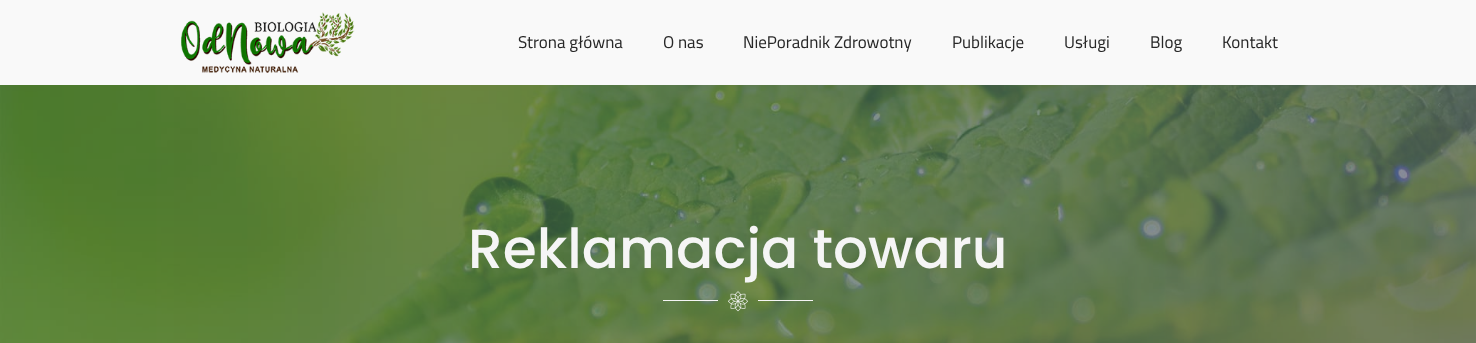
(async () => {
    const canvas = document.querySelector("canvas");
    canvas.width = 1476;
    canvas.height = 343;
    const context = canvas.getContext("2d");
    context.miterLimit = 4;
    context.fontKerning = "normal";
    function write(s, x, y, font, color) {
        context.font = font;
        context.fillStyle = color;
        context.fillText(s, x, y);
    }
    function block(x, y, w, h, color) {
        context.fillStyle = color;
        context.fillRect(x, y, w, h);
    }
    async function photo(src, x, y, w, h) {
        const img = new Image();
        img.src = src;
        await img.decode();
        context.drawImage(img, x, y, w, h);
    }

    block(0, 0, 1476, 343, "rgb(249, 249, 249)");
    await photo("media/1.png", 181, 12, 174, 61);
    write("Strona główna", 518, 48, "17px Cairo", "rgb(40, 40, 40)");
    write("O nas", 663, 48, "17px Cairo", "rgb(40, 40, 40)");
    write("NiePoradnik Zdrowotny", 743, 48, "17px Cairo", "rgb(40, 40, 40)");
    write("Publikacje", 952, 48, "17px Cairo", "rgb(40, 40, 40)");
    write("Usługi", 1064, 48, "17px Cairo", "rgb(40, 40, 40)");
    write("Blog", 1150, 48, "17px Cairo", "rgb(40, 40, 40)");
    write("Kontakt", 1222, 48, "17px Cairo", "rgb(40, 40, 40)");
    await photo("media/2.png", 0, 85, 1476, 258);
    write("Reklamacja towaru", 468, 268, "500 55px Poppins", "rgb(245, 245, 245)");
    block(663, 300, 55, 1, "rgb(245, 245, 245)");
    await photo("media/3.png", 728, 291, 20, 21);
    block(758, 300, 55, 1, "rgb(245, 245, 245)");
})();
